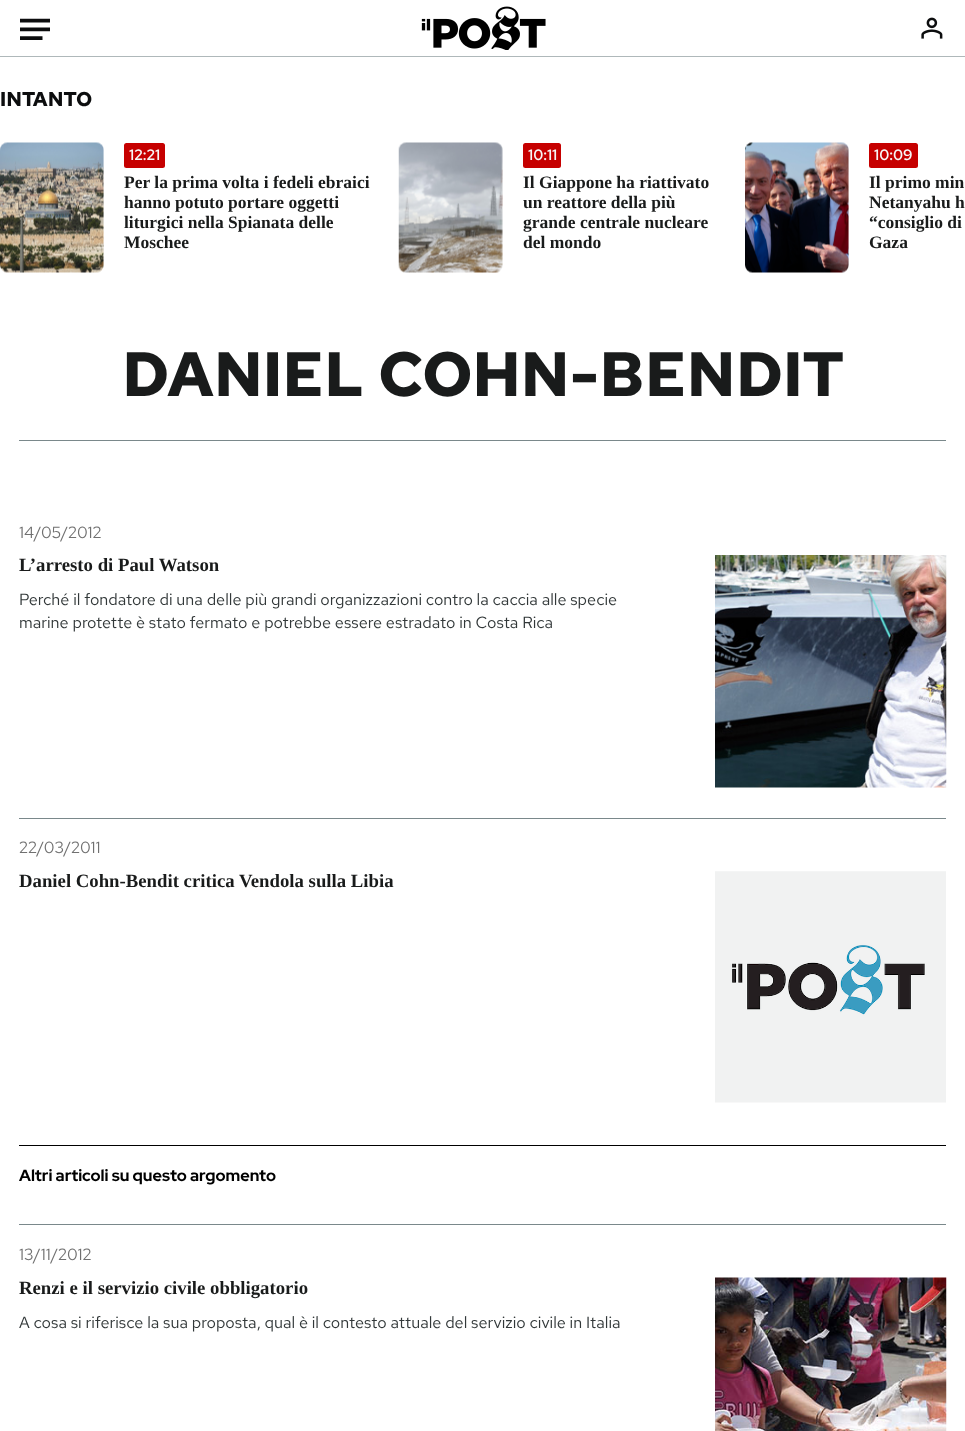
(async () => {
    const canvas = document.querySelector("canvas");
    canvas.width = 965;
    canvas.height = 1431;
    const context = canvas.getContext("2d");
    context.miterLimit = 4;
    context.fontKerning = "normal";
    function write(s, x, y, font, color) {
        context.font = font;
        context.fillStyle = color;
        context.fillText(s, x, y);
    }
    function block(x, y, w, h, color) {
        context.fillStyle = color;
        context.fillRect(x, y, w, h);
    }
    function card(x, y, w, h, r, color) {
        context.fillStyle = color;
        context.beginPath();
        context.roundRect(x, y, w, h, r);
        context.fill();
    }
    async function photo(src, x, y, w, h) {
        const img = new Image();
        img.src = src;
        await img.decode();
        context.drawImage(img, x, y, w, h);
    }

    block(0, 0, 965, 1431, "rgb(255, 255, 255)");
    await photo("media/1.png", 20, 18, 30, 22);
    await photo("media/2.png", 421, 6, 125, 44);
    await photo("media/3.png", 921, 17, 22, 22);
    block(0, 56, 965, 1, "rgb(175, 184, 186)");
    write("INTANTO", 0, 106, "bold 20px Red Hat Text", "rgb(12, 13, 14)");
    await photo("media/4.png", 0, 142, 104, 131);
    card(124, 143, 41, 25, 2.5, "rgb(198, 0, 0)");
    write("12:21", 129, 160, "600 15px Red Hat Text", "rgb(247, 247, 247)");
    write("Per la prima volta i fedeli ebraici", 124, 188, "bold 17.5px Liberation Serif", "rgb(25, 27, 27)");
    write("hanno potuto portare oggetti", 124, 208, "bold 17.5px Liberation Serif", "rgb(25, 27, 27)");
    write("liturgici nella Spianata delle", 124, 228, "bold 17.5px Liberation Serif", "rgb(25, 27, 27)");
    write("Moschee", 124, 248, "bold 17.5px Liberation Serif", "rgb(25, 27, 27)");
    await photo("media/5.png", 398, 142, 105, 131);
    card(523, 143, 38, 25, 2.5, "rgb(198, 0, 0)");
    write("10:11", 528, 160, "600 15px Red Hat Text", "rgb(247, 247, 247)");
    write("Il Giappone ha riattivato", 523, 188, "bold 17.5px Liberation Serif", "rgb(25, 27, 27)");
    write("un reattore della più", 523, 208, "bold 17.5px Liberation Serif", "rgb(25, 27, 27)");
    write("grande centrale nucleare", 523, 228, "bold 17.5px Liberation Serif", "rgb(25, 27, 27)");
    write("del mondo", 523, 248, "bold 17.5px Liberation Serif", "rgb(25, 27, 27)");
    await photo("media/6.png", 745, 142, 104, 131);
    card(869, 143, 49, 25, 2.5, "rgb(198, 0, 0)");
    write("10:09", 874, 160, "600 15px Red Hat Text", "rgb(247, 247, 247)");
    write("Il primo min", 869, 188, "bold 17.5px Liberation Serif", "rgb(25, 27, 27)");
    write("Netanyahu h", 869, 208, "bold 17.5px Liberation Serif", "rgb(25, 27, 27)");
    write("“consiglio di", 869, 228, "bold 17.5px Liberation Serif", "rgb(25, 27, 27)");
    write("Gaza", 869, 248, "bold 17.5px Liberation Serif", "rgb(25, 27, 27)");
    block(19, 440, 927, 1, "rgb(122, 136, 139)");
    write("DANIEL COHN-BENDIT", 122, 396, "bold 62.5px Red Hat Text", "rgb(25, 27, 27)");
    write("14/05/2012", 19, 538, "16.25px Red Hat Text", "rgb(112, 112, 112)");
    write("L’arresto di Paul Watson", 19, 571, "bold 18.75px Liberation Serif", "rgb(25, 27, 27)");
    write("Perché il fondatore di una delle più grandi organizzazioni contro la caccia alle specie", 19, 605, "16.25px Red Hat Text", "rgb(50, 56, 57)");
    write("marine protette è stato fermato e potrebbe essere estradato in Costa Rica", 19, 628, "16.25px Red Hat Text", "rgb(50, 56, 57)");
    await photo("media/7.png", 715, 555, 232, 233);
    block(19, 818, 927, 1, "rgb(122, 136, 139)");
    write("22/03/2011", 19, 853, "16.25px Red Hat Text", "rgb(112, 112, 112)");
    write("Daniel Cohn-Bendit critica Vendola sulla Libia", 19, 887, "bold 18.75px Liberation Serif", "rgb(25, 27, 27)");
    await photo("media/8.png", 715, 871, 231, 232);
    block(19, 1145, 927, 1, "rgb(0, 0, 0)");
    write("Altri articoli su questo argomento", 19, 1181, "bold 16.25px Red Hat Display", "rgb(0, 0, 0)");
    block(19, 1224, 927, 1, "rgb(122, 136, 139)");
    write("13/11/2012", 19, 1260, "16.25px Red Hat Text", "rgb(112, 112, 112)");
    write("Renzi e il servizio civile obbligatorio", 19, 1294, "bold 18.75px Liberation Serif", "rgb(25, 27, 27)");
    write("A cosa si riferisce la sua proposta, qual è il contesto attuale del servizio civile in Italia", 19, 1328, "16.25px Red Hat Text", "rgb(50, 56, 57)");
    await photo("media/9.png", 715, 1277, 232, 154);
})();
